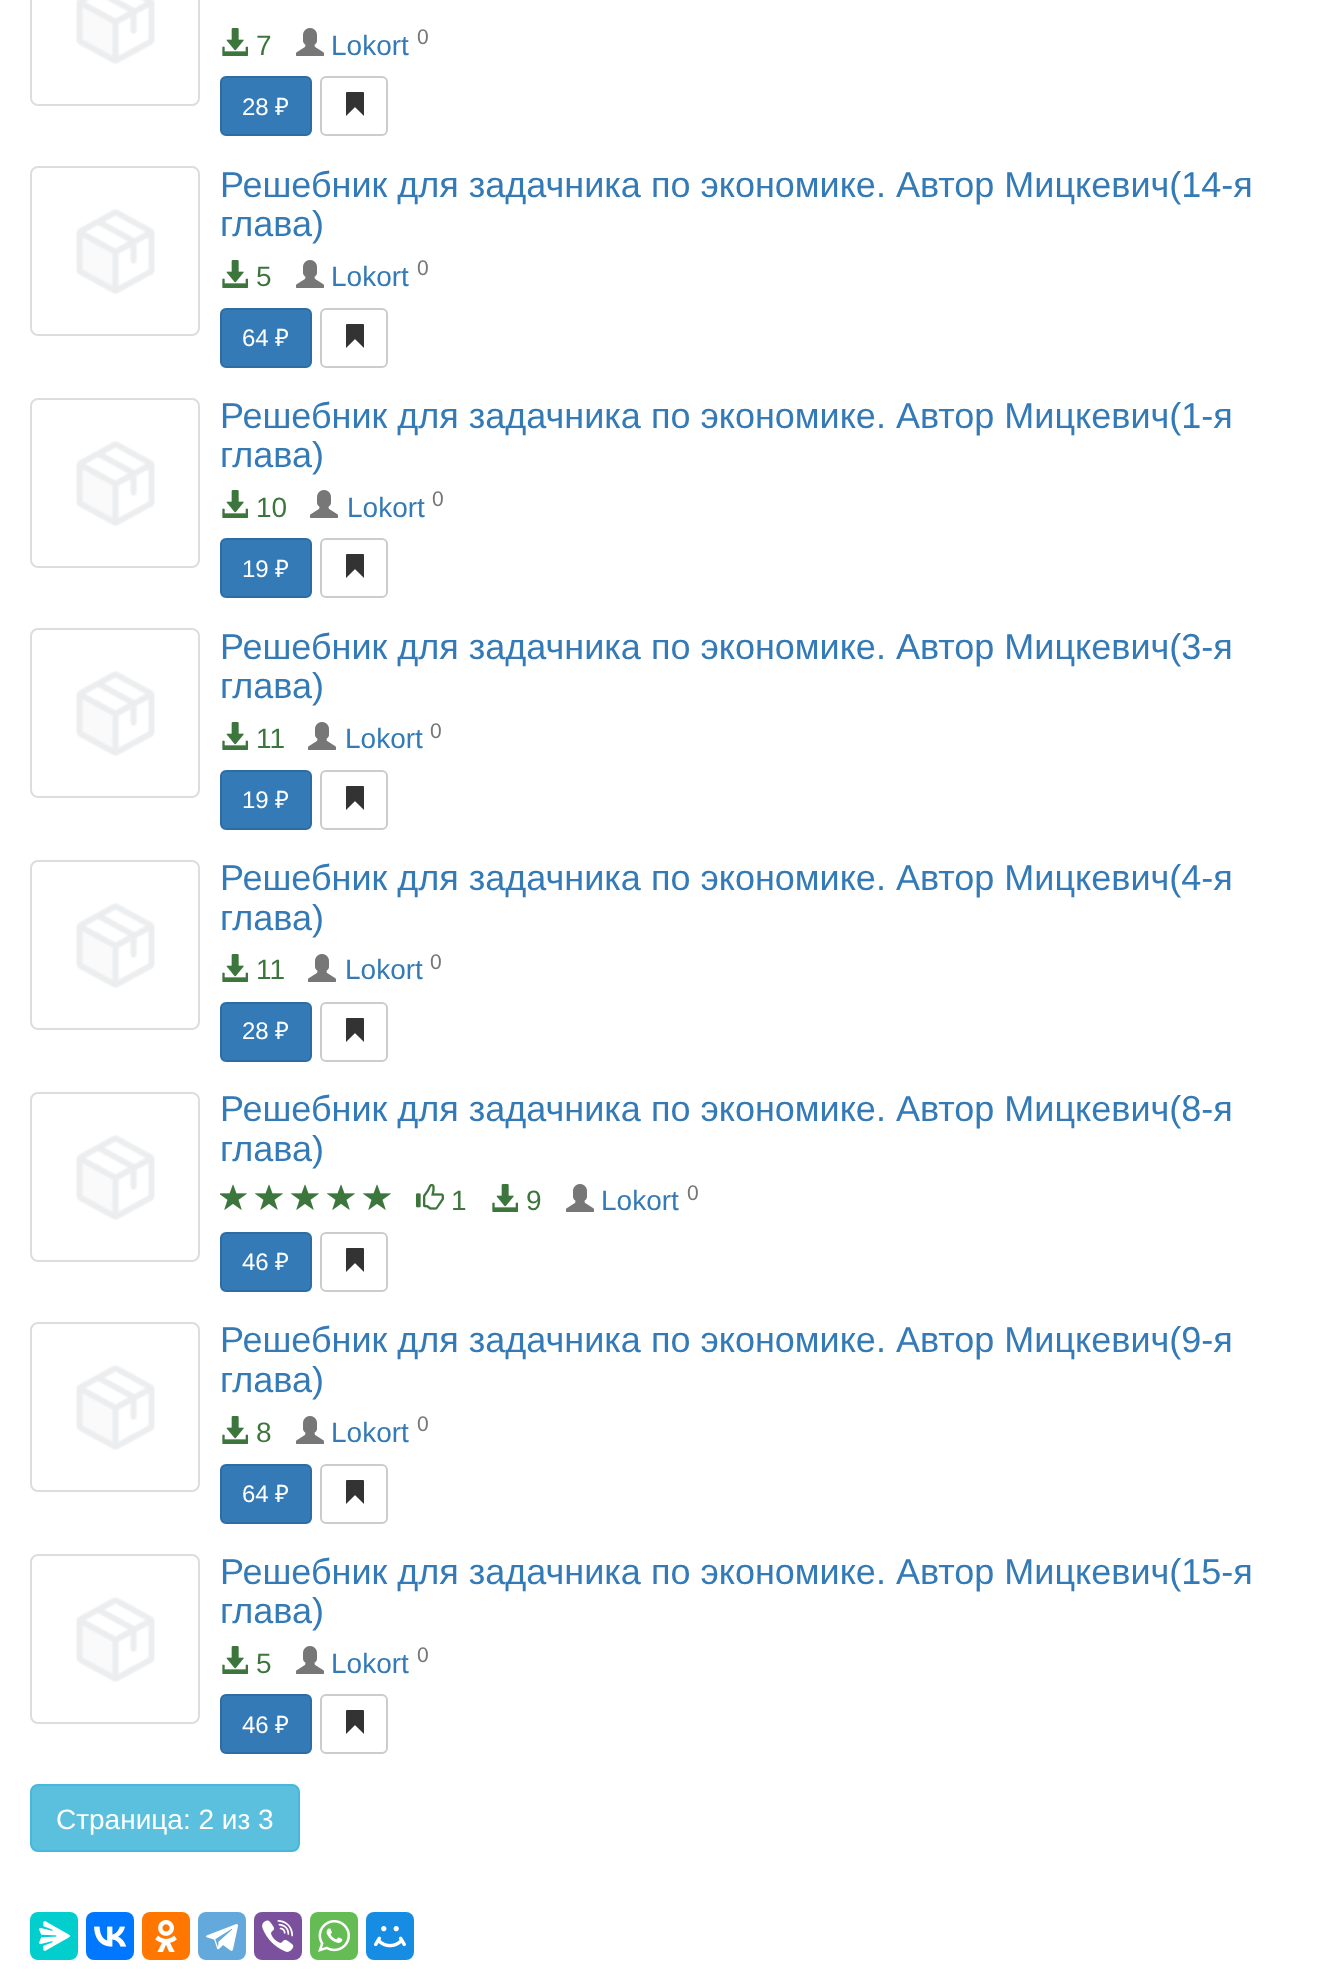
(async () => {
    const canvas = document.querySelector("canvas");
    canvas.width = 1322;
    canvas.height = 1988;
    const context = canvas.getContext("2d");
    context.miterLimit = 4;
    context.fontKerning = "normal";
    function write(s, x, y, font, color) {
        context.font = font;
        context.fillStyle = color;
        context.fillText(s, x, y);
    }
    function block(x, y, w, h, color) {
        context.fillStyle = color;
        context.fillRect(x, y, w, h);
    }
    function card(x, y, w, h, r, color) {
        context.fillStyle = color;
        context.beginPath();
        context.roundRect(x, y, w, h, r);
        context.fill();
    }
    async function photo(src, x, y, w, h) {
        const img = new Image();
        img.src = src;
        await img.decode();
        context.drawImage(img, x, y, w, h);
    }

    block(0, 0, 1322, 1988, "rgb(255, 255, 255)");
    context.beginPath();
    context.roundRect(31, -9, 168, 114, 7);
    context.strokeStyle = "rgb(221, 221, 221)";
    context.lineWidth = 2;
    context.stroke();
    await photo("media/1.png", 76, 0, 79, 64);
    await photo("media/2.png", 222, 28, 26, 28);
    write("7", 256, 55, "28px Liberation Sans", "rgb(60, 118, 61)");
    await photo("media/3.png", 296, 28, 28, 28);
    write("Lokort", 331, 55, "28px Liberation Sans", "rgb(51, 122, 183)");
    write("0", 417, 44, "21px Liberation Sans", "rgb(119, 119, 119)");
    context.fillStyle = "rgb(51, 122, 183)";
    context.beginPath();
    context.roundRect(221, 77, 90, 58, 5);
    context.fill();
    context.strokeStyle = "rgb(46, 109, 164)";
    context.stroke();
    write("28", 242, 115, "24px Liberation Sans", "rgb(255, 255, 255)");
    write("₽", 275, 115, "24px Noto Sans", "rgb(255, 255, 255)");
    context.beginPath();
    context.roundRect(321, 77, 66, 58, 5);
    context.strokeStyle = "rgb(204, 204, 204)";
    context.stroke();
    await photo("media/4.png", 346, 92, 18, 24);
    context.beginPath();
    context.roundRect(31, 167, 168, 168, 7);
    context.strokeStyle = "rgb(221, 221, 221)";
    context.stroke();
    await photo("media/5.png", 76, 209, 79, 85);
    write("Решебник для задачника по экономике. Автор Мицкевич(14-я", 220, 197, "36px Liberation Sans", "rgb(51, 122, 183)");
    write("глава)", 220, 236, "36px Liberation Sans", "rgb(51, 122, 183)");
    await photo("media/2.png", 222, 260, 26, 28);
    write("5", 256, 286, "28px Liberation Sans", "rgb(60, 118, 61)");
    await photo("media/3.png", 296, 260, 28, 28);
    write("Lokort", 331, 286, "28px Liberation Sans", "rgb(51, 122, 183)");
    write("0", 417, 275, "21px Liberation Sans", "rgb(119, 119, 119)");
    context.fillStyle = "rgb(51, 122, 183)";
    context.beginPath();
    context.roundRect(221, 309, 90, 58, 5);
    context.fill();
    context.strokeStyle = "rgb(46, 109, 164)";
    context.stroke();
    write("64", 242, 346, "24px Liberation Sans", "rgb(255, 255, 255)");
    write("₽", 275, 346, "24px Noto Sans", "rgb(255, 255, 255)");
    context.beginPath();
    context.roundRect(321, 309, 66, 58, 5);
    context.strokeStyle = "rgb(204, 204, 204)";
    context.stroke();
    await photo("media/4.png", 346, 324, 18, 24);
    context.beginPath();
    context.roundRect(31, 399, 168, 168, 7);
    context.strokeStyle = "rgb(221, 221, 221)";
    context.stroke();
    await photo("media/5.png", 76, 441, 79, 85);
    write("Решебник для задачника по экономике. Автор Мицкевич(1-я", 220, 428, "36px Liberation Sans", "rgb(51, 122, 183)");
    write("глава)", 220, 467, "36px Liberation Sans", "rgb(51, 122, 183)");
    await photo("media/2.png", 222, 490, 26, 28);
    write("10", 256, 517, "28px Liberation Sans", "rgb(60, 118, 61)");
    await photo("media/3.png", 310, 490, 28, 28);
    write("Lokort", 347, 517, "28px Liberation Sans", "rgb(51, 122, 183)");
    write("0", 432, 506, "21px Liberation Sans", "rgb(119, 119, 119)");
    context.fillStyle = "rgb(51, 122, 183)";
    context.beginPath();
    context.roundRect(221, 539, 90, 58, 5);
    context.fill();
    context.strokeStyle = "rgb(46, 109, 164)";
    context.stroke();
    write("19", 242, 577, "24px Liberation Sans", "rgb(255, 255, 255)");
    write("₽", 275, 577, "24px Noto Sans", "rgb(255, 255, 255)");
    context.beginPath();
    context.roundRect(321, 539, 66, 58, 5);
    context.strokeStyle = "rgb(204, 204, 204)";
    context.stroke();
    await photo("media/4.png", 346, 554, 18, 24);
    context.beginPath();
    context.roundRect(31, 629, 168, 168, 7);
    context.strokeStyle = "rgb(221, 221, 221)";
    context.stroke();
    await photo("media/5.png", 76, 671, 79, 85);
    write("Решебник для задачника по экономике. Автор Мицкевич(3-я", 220, 659, "36px Liberation Sans", "rgb(51, 122, 183)");
    write("глава)", 220, 698, "36px Liberation Sans", "rgb(51, 122, 183)");
    await photo("media/2.png", 222, 722, 26, 28);
    write("11", 256, 748, "28px Liberation Sans", "rgb(60, 118, 61)");
    await photo("media/3.png", 308, 722, 28, 28);
    write("Lokort", 345, 748, "28px Liberation Sans", "rgb(51, 122, 183)");
    write("0", 430, 738, "21px Liberation Sans", "rgb(119, 119, 119)");
    context.fillStyle = "rgb(51, 122, 183)";
    context.beginPath();
    context.roundRect(221, 771, 90, 58, 5);
    context.fill();
    context.strokeStyle = "rgb(46, 109, 164)";
    context.stroke();
    write("19", 242, 808, "24px Liberation Sans", "rgb(255, 255, 255)");
    write("₽", 275, 808, "24px Noto Sans", "rgb(255, 255, 255)");
    context.beginPath();
    context.roundRect(321, 771, 66, 58, 5);
    context.strokeStyle = "rgb(204, 204, 204)";
    context.stroke();
    await photo("media/4.png", 346, 786, 18, 24);
    context.beginPath();
    context.roundRect(31, 861, 168, 168, 7);
    context.strokeStyle = "rgb(221, 221, 221)";
    context.stroke();
    await photo("media/6.png", 76, 903, 79, 85);
    write("Решебник для задачника по экономике. Автор Мицкевич(4-я", 220, 890, "36px Liberation Sans", "rgb(51, 122, 183)");
    write("глава)", 220, 930, "36px Liberation Sans", "rgb(51, 122, 183)");
    await photo("media/2.png", 222, 954, 26, 28);
    write("11", 256, 979, "28px Liberation Sans", "rgb(60, 118, 61)");
    await photo("media/3.png", 308, 954, 28, 28);
    write("Lokort", 345, 979, "28px Liberation Sans", "rgb(51, 122, 183)");
    write("0", 430, 969, "21px Liberation Sans", "rgb(119, 119, 119)");
    context.fillStyle = "rgb(51, 122, 183)";
    context.beginPath();
    context.roundRect(221, 1003, 90, 58, 5);
    context.fill();
    context.strokeStyle = "rgb(46, 109, 164)";
    context.stroke();
    write("28", 242, 1039, "24px Liberation Sans", "rgb(255, 255, 255)");
    write("₽", 275, 1039, "24px Noto Sans", "rgb(255, 255, 255)");
    context.beginPath();
    context.roundRect(321, 1003, 66, 58, 5);
    context.strokeStyle = "rgb(204, 204, 204)";
    context.stroke();
    await photo("media/4.png", 346, 1018, 18, 24);
    context.beginPath();
    context.roundRect(31, 1093, 168, 168, 7);
    context.strokeStyle = "rgb(221, 221, 221)";
    context.stroke();
    await photo("media/5.png", 76, 1135, 79, 85);
    write("Решебник для задачника по экономике. Автор Мицкевич(8-я", 220, 1121, "36px Liberation Sans", "rgb(51, 122, 183)");
    write("глава)", 220, 1161, "36px Liberation Sans", "rgb(51, 122, 183)");
    await photo("media/7.png", 220, 1184, 27, 26);
    await photo("media/8.png", 255, 1184, 28, 26);
    await photo("media/8.png", 291, 1184, 28, 26);
    await photo("media/8.png", 327, 1184, 28, 26);
    await photo("media/8.png", 363, 1184, 28, 26);
    await photo("media/9.png", 416, 1184, 28, 26);
    write("1", 451, 1210, "28px Liberation Sans", "rgb(60, 118, 61)");
    await photo("media/2.png", 492, 1184, 26, 28);
    write("9", 526, 1210, "28px Liberation Sans", "rgb(60, 118, 61)");
    await photo("media/3.png", 566, 1184, 28, 28);
    write("Lokort", 601, 1210, "28px Liberation Sans", "rgb(51, 122, 183)");
    write("0", 687, 1200, "21px Liberation Sans", "rgb(119, 119, 119)");
    context.fillStyle = "rgb(51, 122, 183)";
    context.beginPath();
    context.roundRect(221, 1233, 90, 58, 5);
    context.fill();
    context.strokeStyle = "rgb(46, 109, 164)";
    context.stroke();
    write("46", 242, 1270, "24px Liberation Sans", "rgb(255, 255, 255)");
    write("₽", 275, 1270, "24px Noto Sans", "rgb(255, 255, 255)");
    context.beginPath();
    context.roundRect(321, 1233, 66, 58, 5);
    context.strokeStyle = "rgb(204, 204, 204)";
    context.stroke();
    await photo("media/4.png", 346, 1248, 18, 24);
    context.beginPath();
    context.roundRect(31, 1323, 168, 168, 7);
    context.strokeStyle = "rgb(221, 221, 221)";
    context.stroke();
    await photo("media/5.png", 76, 1365, 79, 85);
    write("Решебник для задачника по экономике. Автор Мицкевич(9-я", 220, 1352, "36px Liberation Sans", "rgb(51, 122, 183)");
    write("глава)", 220, 1392, "36px Liberation Sans", "rgb(51, 122, 183)");
    await photo("media/2.png", 222, 1416, 26, 28);
    write("8", 256, 1442, "28px Liberation Sans", "rgb(60, 118, 61)");
    await photo("media/3.png", 296, 1416, 28, 28);
    write("Lokort", 331, 1442, "28px Liberation Sans", "rgb(51, 122, 183)");
    write("0", 417, 1431, "21px Liberation Sans", "rgb(119, 119, 119)");
    context.fillStyle = "rgb(51, 122, 183)";
    context.beginPath();
    context.roundRect(221, 1465, 90, 58, 5);
    context.fill();
    context.strokeStyle = "rgb(46, 109, 164)";
    context.stroke();
    write("64", 242, 1502, "24px Liberation Sans", "rgb(255, 255, 255)");
    write("₽", 275, 1502, "24px Noto Sans", "rgb(255, 255, 255)");
    context.beginPath();
    context.roundRect(321, 1465, 66, 58, 5);
    context.strokeStyle = "rgb(204, 204, 204)";
    context.stroke();
    await photo("media/4.png", 346, 1480, 18, 24);
    context.beginPath();
    context.roundRect(31, 1555, 168, 168, 7);
    context.strokeStyle = "rgb(221, 221, 221)";
    context.stroke();
    await photo("media/5.png", 76, 1597, 79, 85);
    write("Решебник для задачника по экономике. Автор Мицкевич(15-я", 220, 1584, "36px Liberation Sans", "rgb(51, 122, 183)");
    write("глава)", 220, 1623, "36px Liberation Sans", "rgb(51, 122, 183)");
    await photo("media/2.png", 222, 1646, 26, 28);
    write("5", 256, 1673, "28px Liberation Sans", "rgb(60, 118, 61)");
    await photo("media/3.png", 296, 1646, 28, 28);
    write("Lokort", 331, 1673, "28px Liberation Sans", "rgb(51, 122, 183)");
    write("0", 417, 1662, "21px Liberation Sans", "rgb(119, 119, 119)");
    context.fillStyle = "rgb(51, 122, 183)";
    context.beginPath();
    context.roundRect(221, 1695, 90, 58, 5);
    context.fill();
    context.strokeStyle = "rgb(46, 109, 164)";
    context.stroke();
    write("46", 242, 1733, "24px Liberation Sans", "rgb(255, 255, 255)");
    write("₽", 275, 1733, "24px Noto Sans", "rgb(255, 255, 255)");
    context.beginPath();
    context.roundRect(321, 1695, 66, 58, 5);
    context.strokeStyle = "rgb(204, 204, 204)";
    context.stroke();
    await photo("media/4.png", 346, 1710, 18, 24);
    context.fillStyle = "rgb(91, 192, 222)";
    context.beginPath();
    context.roundRect(31, 1785, 268, 66, 7);
    context.fill();
    context.strokeStyle = "rgb(70, 184, 218)";
    context.stroke();
    write("Страница: 2 из 3", 56, 1829, "28px Liberation Sans", "rgb(255, 255, 255)");
    card(30, 1912, 48, 48, 8, "rgb(3, 206, 206)");
    await photo("media/10.png", 39, 1921, 31, 30);
    card(86, 1912, 48, 48, 8, "rgb(0, 119, 255)");
    await photo("media/11.png", 94, 1926, 33, 21);
    card(142, 1912, 48, 48, 8, "rgb(255, 119, 0)");
    await photo("media/12.png", 155, 1920, 22, 32);
    card(198, 1912, 48, 48, 8, "rgb(100, 169, 220)");
    await photo("media/13.png", 206, 1924, 32, 27);
    card(254, 1912, 48, 48, 8, "rgb(123, 81, 157)");
    await photo("media/14.png", 262, 1920, 32, 32);
    card(310, 1912, 48, 48, 8, "rgb(101, 188, 84)");
    await photo("media/15.png", 318, 1920, 32, 32);
    card(366, 1912, 48, 48, 8, "rgb(22, 141, 226)");
    await photo("media/16.png", 374, 1926, 32, 22);
})();
